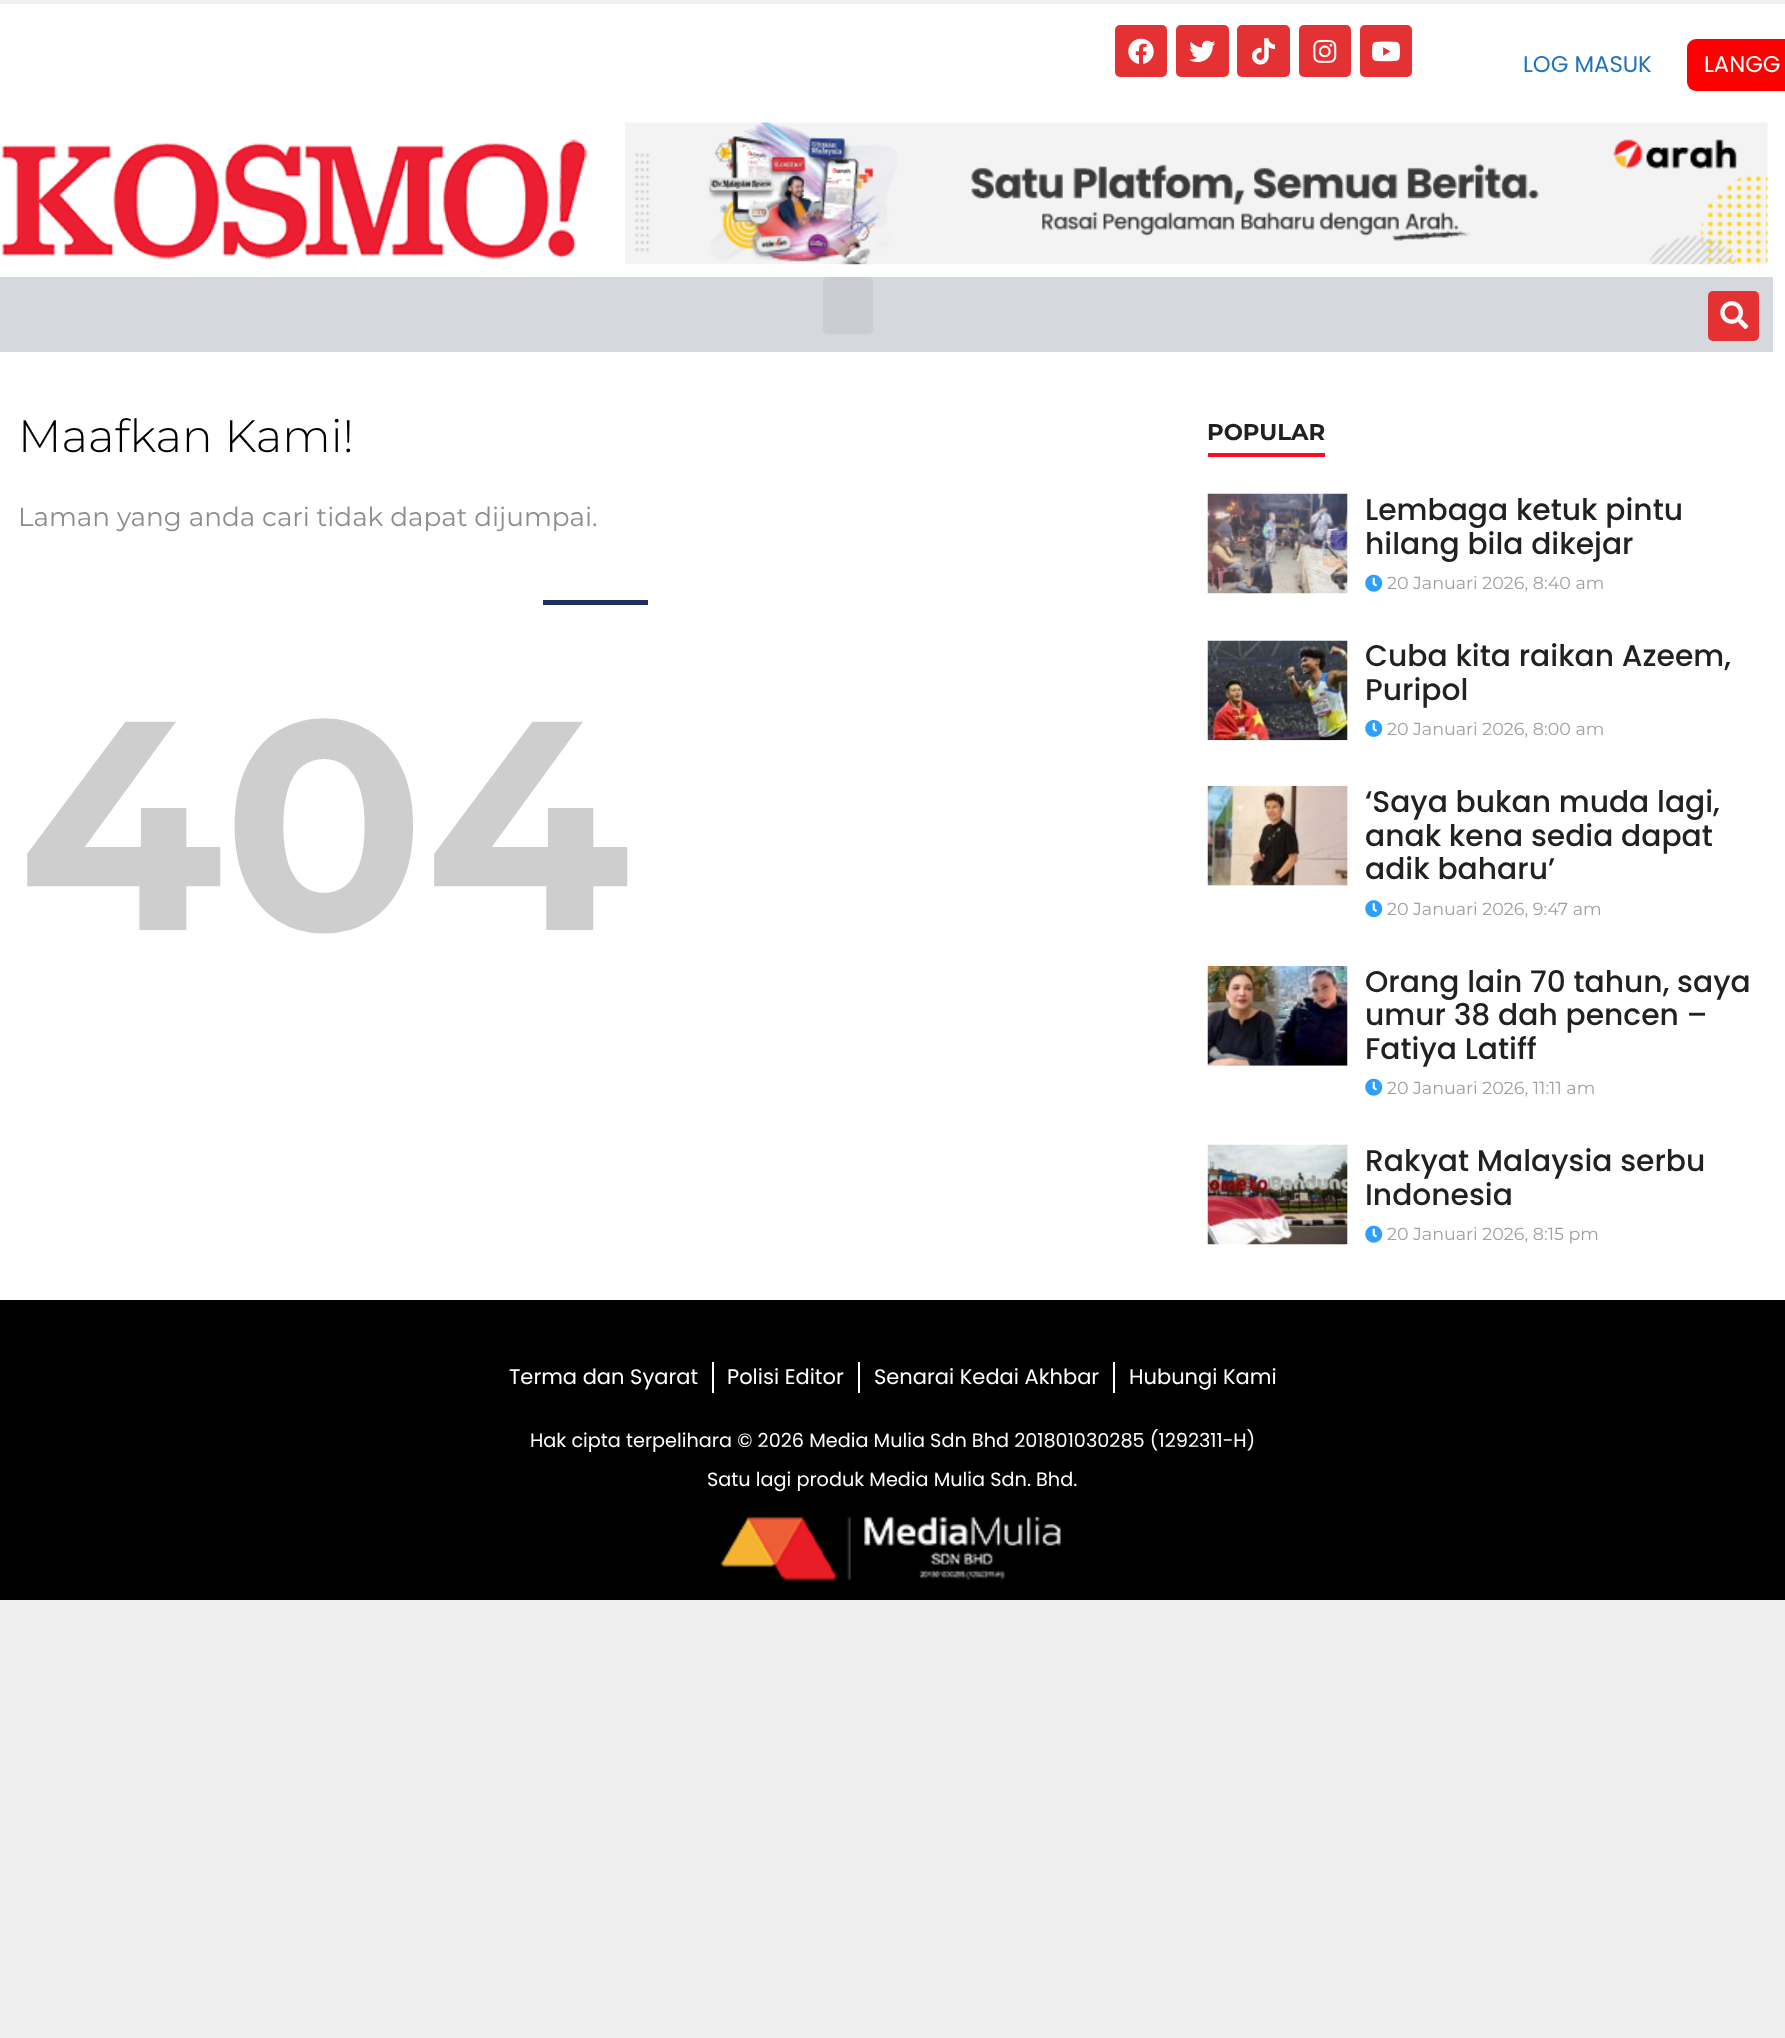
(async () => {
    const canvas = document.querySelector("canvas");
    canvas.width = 1785;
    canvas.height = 2038;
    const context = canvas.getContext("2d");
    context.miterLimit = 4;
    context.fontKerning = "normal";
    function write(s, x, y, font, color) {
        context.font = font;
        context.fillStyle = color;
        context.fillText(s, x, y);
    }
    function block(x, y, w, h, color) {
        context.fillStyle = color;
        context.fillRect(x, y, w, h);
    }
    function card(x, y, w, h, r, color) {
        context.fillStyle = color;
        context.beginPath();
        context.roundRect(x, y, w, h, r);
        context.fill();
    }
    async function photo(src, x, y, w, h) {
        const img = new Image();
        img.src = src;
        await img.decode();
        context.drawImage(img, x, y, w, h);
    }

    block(0, 0, 1785, 2038, "rgb(239, 239, 239)");
    block(0, 4, 1785, 273, "rgb(255, 255, 255)");
    card(1115, 25, 52, 52, 5, "rgb(228, 49, 51)");
    await photo("media/1.png", 1128, 38, 26, 26);
    card(1176, 25, 53, 52, 5, "rgb(228, 49, 51)");
    await photo("media/2.png", 1189, 40, 27, 23);
    card(1237, 25, 53, 52, 5, "rgb(228, 49, 51)");
    await photo("media/3.png", 1252, 38, 23, 27);
    card(1299, 25, 52, 52, 5, "rgb(228, 49, 51)");
    await photo("media/4.png", 1313, 39, 24, 24);
    card(1360, 25, 52, 52, 5, "rgb(228, 49, 51)");
    await photo("media/5.png", 1372, 41, 28, 21);
    write("LOG MASUK", 1523, 72, "22.75px Poppins", "rgb(30, 115, 190)");
    card(1687, 39, 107, 52, 9, "rgb(255, 0, 0)");
    write("LANGG", 1704, 72, "22.75px Poppins", "rgb(255, 255, 255)");
    await photo("media/6.png", 625, 122, 1143, 143);
    await photo("media/7.png", 1, 139, 587, 121);
    block(1773, 277, 12, 75, "rgb(255, 255, 255)");
    block(0, 277, 1773, 75, "rgb(213, 216, 220)");
    card(823, 277, 50, 57, 5, "rgb(202, 205, 209)");
    card(1708, 291, 51, 50, 5, "rgb(228, 49, 51)");
    await photo("media/8.png", 1720, 301, 29, 28);
    block(0, 352, 1785, 948, "rgb(255, 255, 255)");
    write("Maafkan Kami!", 18, 452, "300 45.5px Montserrat", "rgb(0, 0, 0)");
    write("Laman yang anda cari tidak dapat dijumpai.", 18, 526, "26.25px Montserrat", "rgb(140, 140, 140)");
    block(543, 600, 105, 5, "rgb(31, 46, 95)");
    write("404", 18, 930, "bold 297.5px Montserrat", "rgb(206, 206, 206)");
    block(1208, 453, 117, 4, "rgb(247, 13, 40)");
    write("POPULAR", 1207, 440, "bold 22.75px Montserrat", "rgb(33, 33, 33)");
    block(1347, 494, 1, 99, "rgb(247, 247, 247)");
    await photo("media/9.png", 1207, 493, 141, 101);
    write("Lembaga ketuk pintu", 1365, 520, "500 29.75px Poppins", "rgb(33, 33, 33)");
    write("hilang bila dikejar", 1365, 554, "500 29.75px Poppins", "rgb(33, 33, 33)");
    await photo("media/10.png", 1365, 574, 18, 18);
    write("20 Januari 2026, 8:40 am", 1387, 589, "17.5px Montserrat", "rgb(160, 160, 160)");
    block(1347, 641, 1, 99, "rgb(247, 247, 247)");
    await photo("media/11.png", 1207, 640, 141, 101);
    write("Cuba kita raikan Azeem,", 1365, 666, "500 29.75px Poppins", "rgb(33, 33, 33)");
    write("Puripol", 1365, 700, "500 29.75px Poppins", "rgb(33, 33, 33)");
    await photo("media/12.png", 1365, 720, 18, 17);
    write("20 Januari 2026, 8:00 am", 1387, 735, "17.5px Montserrat", "rgb(160, 160, 160)");
    block(1208, 786, 140, 100, "rgb(247, 247, 247)");
    await photo("media/13.png", 1207, 785, 141, 101);
    write("‘Saya bukan muda lagi,", 1365, 812, "500 29.75px Poppins", "rgb(33, 33, 33)");
    write("anak kena sedia dapat", 1365, 846, "500 29.75px Poppins", "rgb(33, 33, 33)");
    write("adik baharu’", 1365, 879, "500 29.75px Poppins", "rgb(33, 33, 33)");
    await photo("media/14.png", 1365, 900, 18, 18);
    write("20 Januari 2026, 9:47 am", 1387, 915, "17.5px Montserrat", "rgb(160, 160, 160)");
    block(1208, 966, 140, 100, "rgb(247, 247, 247)");
    await photo("media/15.png", 1207, 966, 141, 100);
    write("Orang lain 70 tahun, saya", 1365, 992, "500 29.75px Poppins", "rgb(33, 33, 33)");
    write("umur 38 dah pencen –", 1365, 1025, "500 29.75px Poppins", "rgb(33, 33, 33)");
    write("Fatiya Latiff", 1365, 1059, "500 29.75px Poppins", "rgb(33, 33, 33)");
    await photo("media/10.png", 1365, 1078, 18, 18);
    write("20 Januari 2026, 11:11 am", 1387, 1094, "17.5px Montserrat", "rgb(160, 160, 160)");
    block(1347, 1145, 1, 99, "rgb(247, 247, 247)");
    await photo("media/16.png", 1207, 1144, 141, 101);
    write("Rakyat Malaysia serbu", 1365, 1171, "500 29.75px Poppins", "rgb(33, 33, 33)");
    write("Indonesia", 1365, 1205, "500 29.75px Poppins", "rgb(33, 33, 33)");
    await photo("media/10.png", 1365, 1225, 18, 18);
    write("20 Januari 2026, 8:15 pm", 1387, 1240, "17.5px Montserrat", "rgb(160, 160, 160)");
    block(0, 1300, 1785, 300, "rgb(0, 0, 0)");
    write("Terma dan Syarat", 509, 1384, "21px Poppins", "rgb(255, 255, 255)");
    block(712, 1362, 2, 31, "rgb(255, 255, 255)");
    write("Polisi Editor", 727, 1384, "21px Poppins", "rgb(255, 255, 255)");
    block(858, 1362, 2, 31, "rgb(255, 255, 255)");
    write("Senarai Kedai Akhbar", 874, 1384, "21px Poppins", "rgb(255, 255, 255)");
    block(1113, 1362, 2, 31, "rgb(255, 255, 255)");
    write("Hubungi Kami", 1129, 1384, "21px Poppins", "rgb(255, 255, 255)");
    write("Hak cipta terpelihara © 2026 Media Mulia Sdn Bhd 201801030285 (1292311-H)", 530, 1447, "19.25px Poppins", "rgb(255, 255, 255)");
    write("Satu lagi produk Media Mulia Sdn. Bhd.", 707, 1486, "19.25px Poppins", "rgb(255, 255, 255)");
    await photo("media/17.png", 720, 1516, 341, 65);
})();
